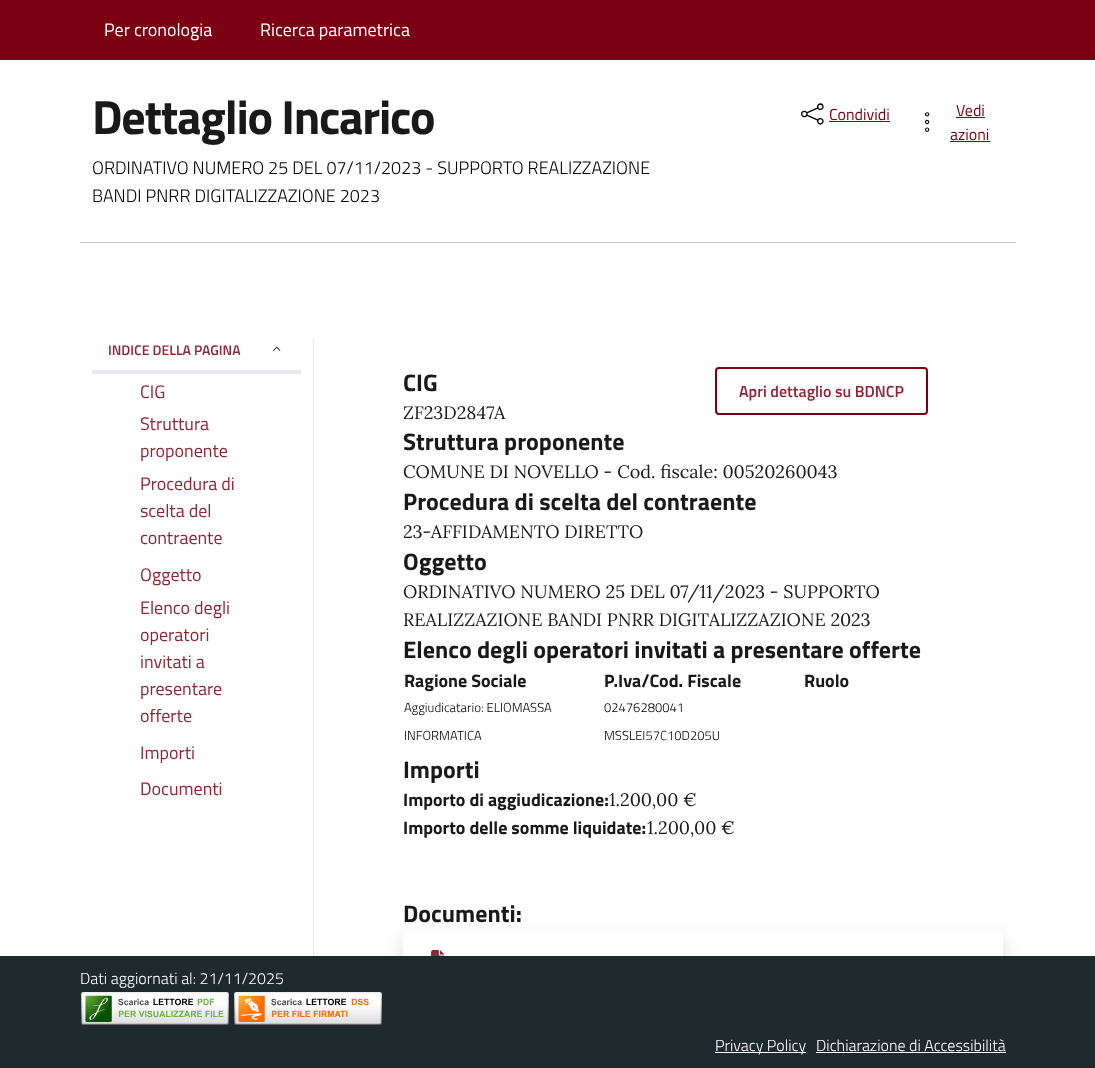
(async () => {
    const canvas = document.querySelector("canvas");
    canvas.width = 1095;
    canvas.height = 1068;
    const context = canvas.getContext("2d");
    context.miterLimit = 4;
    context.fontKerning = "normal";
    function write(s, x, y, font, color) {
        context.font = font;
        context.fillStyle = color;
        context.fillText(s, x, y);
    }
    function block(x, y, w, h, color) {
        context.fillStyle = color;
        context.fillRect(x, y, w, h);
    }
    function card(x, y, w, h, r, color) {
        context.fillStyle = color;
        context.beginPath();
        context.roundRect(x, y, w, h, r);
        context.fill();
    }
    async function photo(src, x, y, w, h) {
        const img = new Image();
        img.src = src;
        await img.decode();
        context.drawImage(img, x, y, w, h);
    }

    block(0, 0, 1095, 1068, "rgb(255, 255, 255)");
    block(0, 0, 1095, 60, "rgb(122, 0, 18)");
    write("Per cronologia", 104, 36, "18px Titillium Web", "rgb(255, 255, 255)");
    write("Ricerca parametrica", 260, 36, "18px Titillium Web", "rgb(255, 255, 255)");
    context.letterSpacing = "-1.25px";
    write("Dettaglio Incarico", 92, 134, "bold 48px Titillium Web", "rgb(25, 25, 25)");
    context.letterSpacing = "0px";
    write("ORDINATIVO NUMERO 25 DEL 07/11/2023 - SUPPORTO REALIZZAZIONE", 92, 174, "300 18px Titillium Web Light", "rgb(0, 0, 0)");
    write("BANDI PNRR DIGITALIZZAZIONE 2023", 92, 202, "300 18px Titillium Web Light", "rgb(0, 0, 0)");
    await photo("media/1.png", 801, 103, 23, 22);
    write("Condividi", 829, 120, "16px Titillium Web", "rgb(122, 0, 18)");
    block(829, 121, 61, 1, "rgb(122, 0, 18)");
    await photo("media/2.png", 925, 112, 5, 20);
    write("Vedi", 956, 116, "16px Titillium Web", "rgb(122, 0, 18)");
    block(956, 117, 29, 1, "rgb(122, 0, 18)");
    write("azioni", 950, 140, "16px Titillium Web", "rgb(122, 0, 18)");
    block(950, 141, 40, 1, "rgb(122, 0, 18)");
    block(80, 242, 936, 1, "rgb(198, 198, 198)");
    block(313, 339, 1, 617, "rgb(229, 229, 229)");
    write("INDICE DELLA PAGINA", 108, 355, "600 14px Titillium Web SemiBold", "rgb(142, 38, 54)");
    await photo("media/3.png", 273, 346, 8, 5);
    block(92, 370, 209, 4, "rgb(233, 230, 242)");
    write("CIG", 140, 398, "18px Titillium Web", "rgb(142, 38, 54)");
    write("Struttura", 140, 430, "18px Titillium Web", "rgb(142, 38, 54)");
    write("proponente", 140, 457, "18px Titillium Web", "rgb(142, 38, 54)");
    write("Procedura di", 140, 490, "18px Titillium Web", "rgb(142, 38, 54)");
    write("scelta del", 140, 517, "18px Titillium Web", "rgb(142, 38, 54)");
    write("contraente", 140, 544, "18px Titillium Web", "rgb(142, 38, 54)");
    write("Oggetto", 140, 581, "18px Titillium Web", "rgb(142, 38, 54)");
    write("Elenco degli", 140, 614, "18px Titillium Web", "rgb(142, 38, 54)");
    write("operatori", 140, 641, "18px Titillium Web", "rgb(142, 38, 54)");
    write("invitati a", 140, 668, "18px Titillium Web", "rgb(142, 38, 54)");
    write("presentare", 140, 695, "18px Titillium Web", "rgb(142, 38, 54)");
    write("offerte", 140, 722, "18px Titillium Web", "rgb(142, 38, 54)");
    write("Importi", 140, 759, "18px Titillium Web", "rgb(142, 38, 54)");
    write("Documenti", 140, 795, "18px Titillium Web", "rgb(142, 38, 54)");
    write("CIG", 403, 391, "bold 24px Titillium Web", "rgb(25, 25, 25)");
    write("ZF23D2847A", 403, 419, "18px Lora", "rgb(25, 25, 25)");
    context.beginPath();
    context.roundRect(716, 368, 211, 46, 3);
    context.strokeStyle = "rgb(122, 0, 18)";
    context.lineWidth = 2;
    context.stroke();
    write("Apri dettaglio su BDNCP", 739, 397, "600 16px Titillium Web SemiBold", "rgb(142, 38, 54)");
    write("Struttura proponente", 403, 450, "bold 24px Titillium Web", "rgb(25, 25, 25)");
    write("COMUNE DI NOVELLO - Cod. fiscale: 00520260043", 403, 478, "18px Lora", "rgb(25, 25, 25)");
    write("Procedura di scelta del contraente", 403, 510, "bold 24px Titillium Web", "rgb(25, 25, 25)");
    write("23-AFFIDAMENTO DIRETTO", 403, 538, "18px Lora", "rgb(25, 25, 25)");
    write("Oggetto", 403, 570, "bold 24px Titillium Web", "rgb(25, 25, 25)");
    write("ORDINATIVO NUMERO 25 DEL 07/11/2023 - SUPPORTO", 403, 598, "18px Lora", "rgb(25, 25, 25)");
    write("REALIZZAZIONE BANDI PNRR DIGITALIZZAZIONE 2023", 403, 626, "18px Lora", "rgb(25, 25, 25)");
    write("Elenco degli operatori invitati a presentare offerte", 403, 658, "bold 24px Titillium Web", "rgb(25, 25, 25)");
    write("Ragione Sociale", 404, 687, "bold 18px Titillium Web", "rgb(25, 25, 25)");
    write("P.Iva/Cod. Fiscale", 604, 687, "bold 18px Titillium Web", "rgb(25, 25, 25)");
    write("Ruolo", 804, 687, "bold 18px Titillium Web", "rgb(25, 25, 25)");
    write("Aggiudicatario: ELIOMASSA", 404, 712, "300 13px Titillium Web Light", "rgb(0, 0, 0)");
    write("INFORMATICA", 404, 740, "300 13px Titillium Web Light", "rgb(0, 0, 0)");
    write("02476280041", 604, 712, "300 13px Titillium Web Light", "rgb(0, 0, 0)");
    write("MSSLEI57C10D205U", 604, 740, "300 13px Titillium Web Light", "rgb(0, 0, 0)");
    write("Importi", 403, 778, "bold 24px Titillium Web", "rgb(25, 25, 25)");
    write("Importo di aggiudicazione:", 403, 806, "bold 18px Titillium Web", "rgb(25, 25, 25)");
    write("1.200,00 €", 609, 806, "18px Lora", "rgb(25, 25, 25)");
    write("Importo delle somme liquidate:", 403, 834, "bold 18px Titillium Web", "rgb(25, 25, 25)");
    write("1.200,00 €", 647, 834, "18px Lora", "rgb(25, 25, 25)");
    write("Documenti:", 403, 922, "bold 24px Titillium Web", "rgb(25, 25, 25)");
    context.fillStyle = "rgba(0, 0, 0, 0.15)";
    context.filter = "blur(9px)";
    context.beginPath();
    context.roundRect(403, 939, 600, 64, 4);
    context.fill();
    context.filter = "none";
    card(403, 930, 600, 64, 4, "rgb(255, 255, 255)");
    await photo("media/4.png", 431, 950, 14, 6);
    block(0, 956, 1095, 112, "rgb(32, 42, 46)");
    write("Dati aggiornati al: 21/11/2025", 80, 984, "300 16px Titillium Web Light", "rgb(255, 255, 255)");
    await photo("media/5.png", 80, 992, 150, 33);
    await photo("media/6.png", 233, 992, 150, 33);
    block(715, 1052, 91, 1, "rgb(255, 255, 255)");
    write("Privacy Policy", 715, 1051, "300 16px Titillium Web Light", "rgb(255, 255, 255)");
    write("Dichiarazione di Accessibilità", 816, 1051, "300 16px Titillium Web Light", "rgb(255, 255, 255)");
    block(816, 1052, 190, 1, "rgb(255, 255, 255)");
})();
